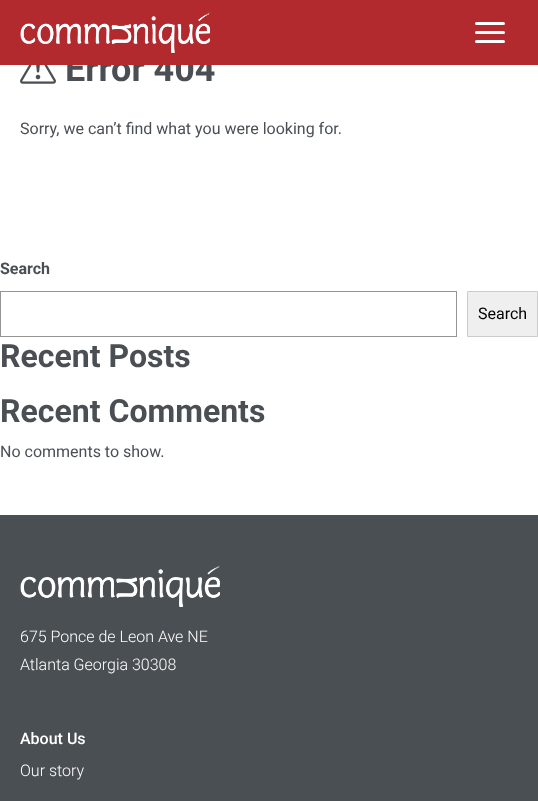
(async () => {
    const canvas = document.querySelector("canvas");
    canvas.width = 538;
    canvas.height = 801;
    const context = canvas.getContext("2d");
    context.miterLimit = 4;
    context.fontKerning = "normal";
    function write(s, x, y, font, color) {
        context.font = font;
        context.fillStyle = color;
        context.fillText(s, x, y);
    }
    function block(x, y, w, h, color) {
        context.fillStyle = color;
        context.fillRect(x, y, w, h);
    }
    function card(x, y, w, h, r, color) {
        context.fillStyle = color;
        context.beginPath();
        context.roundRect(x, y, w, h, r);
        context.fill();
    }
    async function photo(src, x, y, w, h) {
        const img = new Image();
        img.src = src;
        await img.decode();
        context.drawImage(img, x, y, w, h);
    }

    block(0, 0, 538, 801, "rgb(255, 255, 255)");
    write("Error 404", 65, 81, "bold 36px Roboto", "rgb(74, 79, 84)");
    block(0, 0, 538, 65, "rgb(178, 41, 46)");
    await photo("media/1.png", 20, 12, 191, 41);
    card(475, 22, 30, 3, 1.5, "rgb(255, 255, 255)");
    card(475, 31, 30, 3, 1.5, "rgb(255, 255, 255)");
    card(475, 40, 30, 3, 1.5, "rgb(255, 255, 255)");
    await photo("media/2.png", 20, 65, 36, 19);
    write("Sorry, we can’t find what you were looking for.", 20, 134, "16px Roboto", "rgb(74, 79, 84)");
    write("Search", 0, 274, "bold 16px Roboto", "rgb(74, 79, 84)");
    context.strokeStyle = "rgb(148, 148, 148)";
    context.strokeRect(0.5, 291.5, 456, 45);
    context.fillStyle = "rgb(239, 239, 239)";
    context.beginPath();
    context.rect(467.5, 291.5, 70, 45);
    context.fill();
    context.strokeStyle = "rgb(204, 204, 204)";
    context.stroke();
    write("Search", 478, 319, "16px Roboto", "rgb(0, 0, 0)");
    write("Recent Posts", 0, 367, "bold 32px Roboto", "rgb(74, 79, 84)");
    write("Recent Comments", 0, 422, "bold 32px Roboto", "rgb(74, 79, 84)");
    write("No comments to show.", 0, 457, "16px Roboto", "rgb(74, 79, 84)");
    block(0, 515, 538, 286, "rgb(74, 79, 84)");
    await photo("media/3.png", 20, 565, 200, 42);
    write("675 Ponce de Leon Ave NE", 20, 642, "300 16px Roboto", "rgb(255, 255, 255)");
    write("Atlanta Georgia 30308", 20, 670, "300 16px Roboto", "rgb(255, 255, 255)");
    write("About Us", 20, 744, "500 16px Roboto", "rgb(255, 255, 255)");
    write("Our story", 20, 776, "300 16px Roboto", "rgb(255, 255, 255)");
})();
